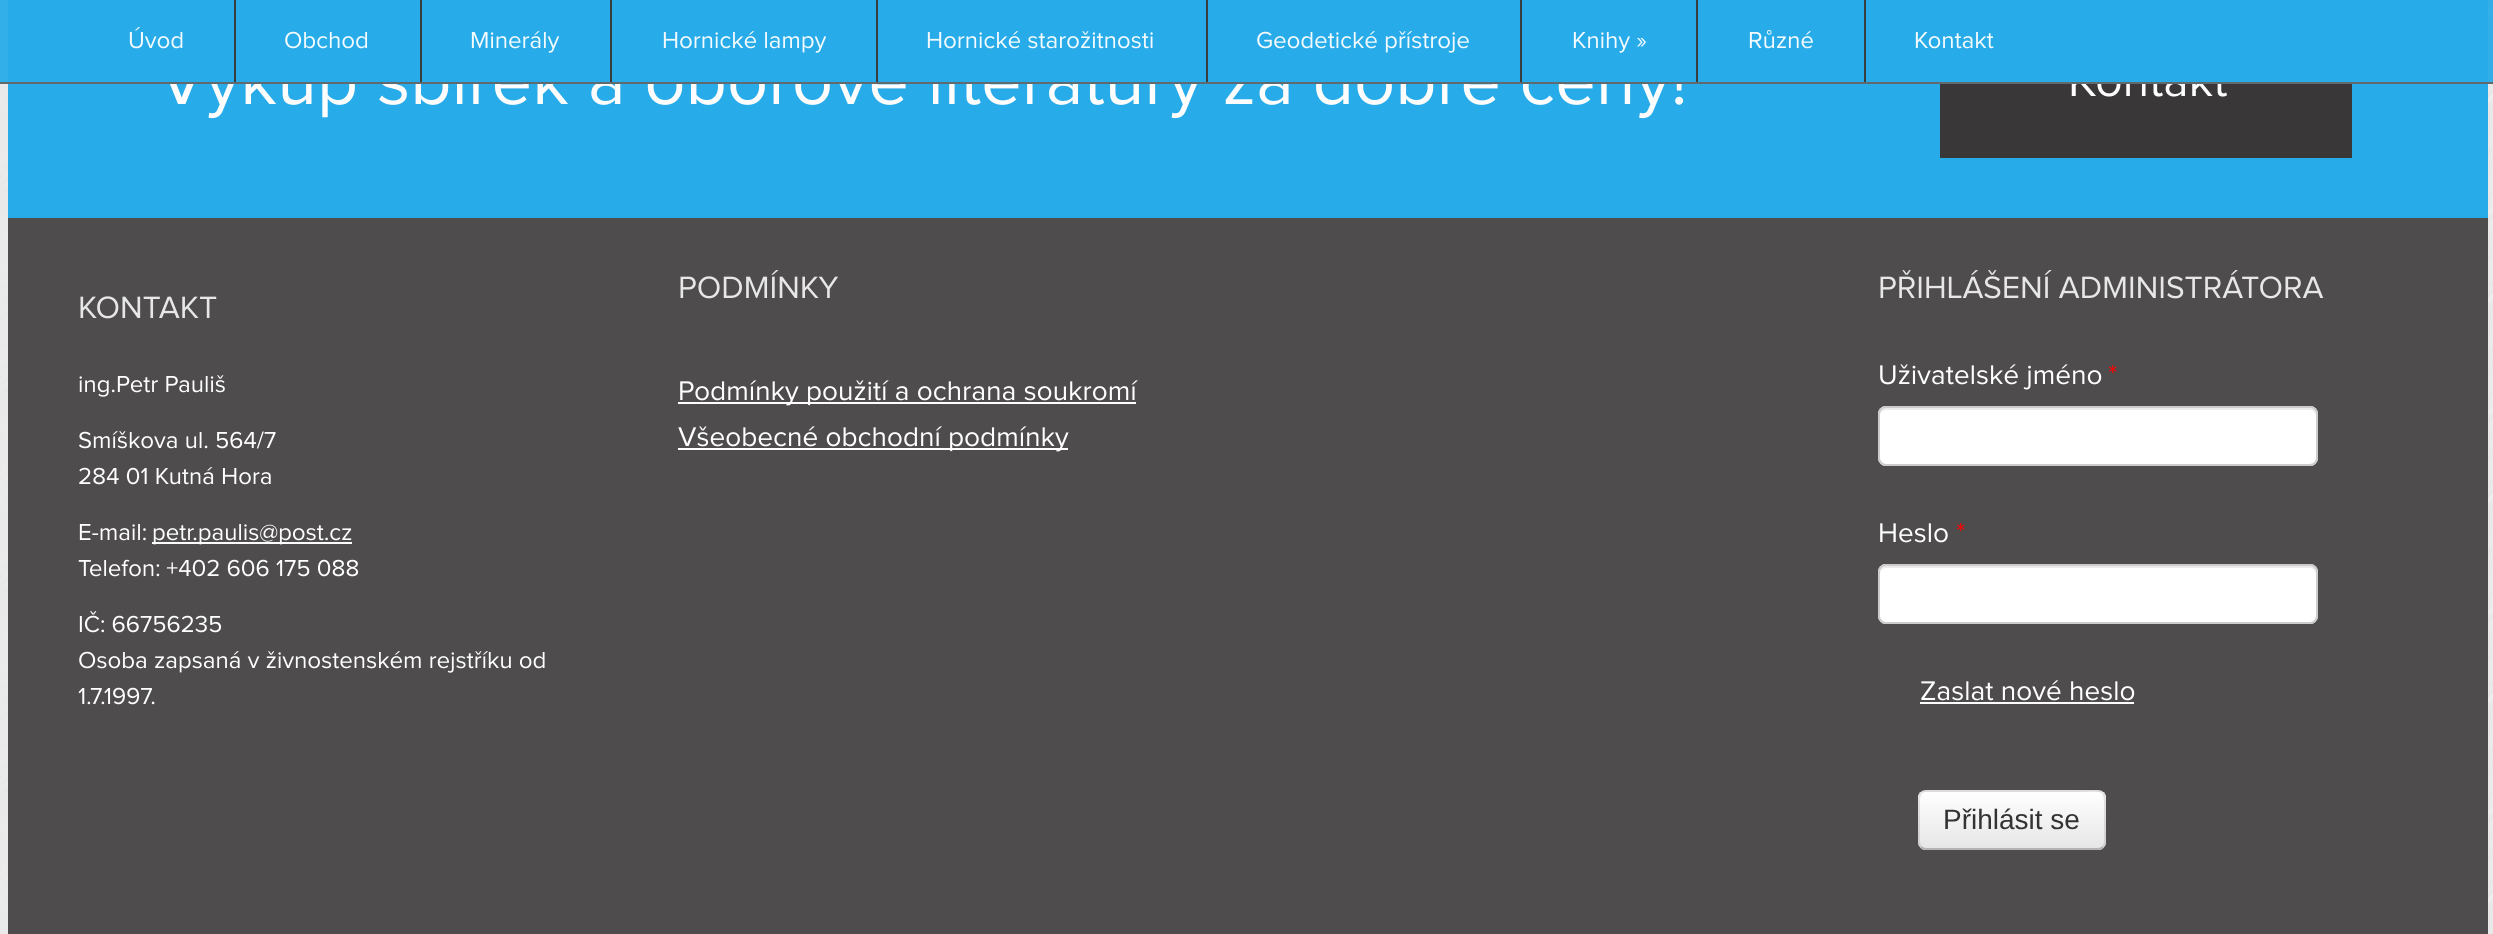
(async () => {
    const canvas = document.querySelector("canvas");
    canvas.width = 2493;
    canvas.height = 934;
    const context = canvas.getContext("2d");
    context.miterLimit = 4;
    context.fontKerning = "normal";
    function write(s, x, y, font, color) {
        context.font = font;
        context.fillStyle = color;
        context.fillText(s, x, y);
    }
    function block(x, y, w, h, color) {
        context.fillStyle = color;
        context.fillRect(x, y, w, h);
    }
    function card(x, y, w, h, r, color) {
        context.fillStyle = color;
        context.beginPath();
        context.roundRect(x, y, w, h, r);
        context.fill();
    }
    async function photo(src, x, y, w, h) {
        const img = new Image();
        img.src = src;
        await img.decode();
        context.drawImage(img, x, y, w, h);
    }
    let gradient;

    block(0, 0, 2493, 934, "rgb(255, 255, 255)");
    await photo("media/1.png", 0, 0, 2493, 934);
    block(8, 0, 2480, 218, "rgb(40, 171, 233)");
    await photo("media/11.png", 158, 53, 1526, 66);
    block(1940, 6, 412, 152, "rgb(57, 55, 55)");
    await photo("media/12.png", 2071, 64, 156, 33);
    block(0, 0, 2493, 84, "rgba(40, 171, 233, 0.95)");
    block(0, 82, 2493, 2, "rgba(102, 102, 102, 0.95)");
    block(159, 6, 2193, 76, "rgba(40, 171, 233, 0.95)");
    await photo("media/2.png", 129, 27, 54, 22);
    block(234, 0, 2, 82, "rgb(56, 61, 64)");
    await photo("media/3.png", 285, 31, 83, 18);
    block(420, 0, 2, 82, "rgb(56, 61, 64)");
    await photo("media/4.png", 471, 31, 89, 22);
    block(610, 0, 2, 82, "rgb(56, 61, 64)");
    await photo("media/5.png", 663, 31, 164, 22);
    block(876, 0, 2, 82, "rgb(56, 61, 64)");
    await photo("media/6.png", 927, 31, 226, 18);
    block(1206, 0, 2, 82, "rgb(56, 61, 64)");
    await photo("media/7.png", 1257, 31, 212, 22);
    block(1520, 0, 2, 82, "rgb(56, 61, 64)");
    await photo("media/8.png", 1573, 32, 73, 21);
    block(1696, 0, 2, 82, "rgb(56, 61, 64)");
    await photo("media/9.png", 1749, 30, 64, 19);
    block(1864, 0, 2, 82, "rgb(56, 61, 64)");
    await photo("media/10.png", 1915, 32, 79, 17);
    block(8, 218, 2480, 716, "rgb(78, 76, 76)");
    await photo("media/13.png", 80, 296, 137, 23);
    await photo("media/14.png", 79, 375, 146, 22);
    await photo("media/15.png", 79, 431, 197, 18);
    await photo("media/16.png", 79, 467, 192, 18);
    await photo("media/17.png", 79, 524, 67, 17);
    block(152, 542, 200, 2, "rgb(255, 255, 255)");
    await photo("media/18.png", 153, 524, 199, 21);
    await photo("media/19.png", 78, 559, 82, 18);
    await photo("media/20.png", 166, 559, 193, 18);
    await photo("media/21.png", 79, 611, 143, 22);
    await photo("media/22.png", 79, 651, 466, 22);
    await photo("media/23.png", 78, 687, 77, 18);
    await photo("media/24.png", 680, 270, 158, 29);
    block(678, 402, 458, 2, "rgb(255, 255, 255)");
    await photo("media/25.png", 680, 380, 458, 26);
    block(678, 448, 390, 2, "rgb(255, 255, 255)");
    await photo("media/26.png", 678, 426, 391, 26);
    await photo("media/27.png", 1880, 270, 444, 29);
    await photo("media/28.png", 1880, 364, 222, 26);
    await photo("media/29.png", 2109, 365, 8, 9);
    card(1878, 406, 440, 60, 8, "rgb(255, 255, 255)");
    context.fillStyle = "rgb(236, 236, 236)";
    context.beginPath();
    context.moveTo(1886, 410);
    context.lineTo(2310, 410);
    context.bezierCurveTo(2313, 410, 2316, 413, 2316, 416);
    context.lineTo(2316, 414);
    context.bezierCurveTo(2316, 411, 2313, 408, 2310, 408);
    context.lineTo(1886, 408);
    context.bezierCurveTo(1883, 408, 1880, 411, 1880, 414);
    context.lineTo(1880, 416);
    context.bezierCurveTo(1880, 413, 1883, 410, 1886, 410);
    context.closePath();
    context.fill();
    context.beginPath();
    context.roundRect(1879, 407, 438, 58, 7);
    context.strokeStyle = "rgb(204, 204, 204)";
    context.lineWidth = 2;
    context.stroke();
    await photo("media/30.png", 1880, 523, 68, 20);
    await photo("media/29.png", 1957, 523, 8, 9);
    card(1878, 564, 440, 60, 8, "rgb(255, 255, 255)");
    context.fillStyle = "rgb(236, 236, 236)";
    context.beginPath();
    context.moveTo(1886, 568);
    context.lineTo(2310, 568);
    context.bezierCurveTo(2313, 568, 2316, 571, 2316, 574);
    context.lineTo(2316, 572);
    context.bezierCurveTo(2316, 569, 2313, 566, 2310, 566);
    context.lineTo(1886, 566);
    context.bezierCurveTo(1883, 566, 1880, 569, 1880, 572);
    context.lineTo(1880, 574);
    context.bezierCurveTo(1880, 571, 1883, 568, 1886, 568);
    context.closePath();
    context.fill();
    context.beginPath();
    context.roundRect(1879, 565, 438, 58, 7);
    context.stroke();
    await photo("media/31.png", 1921, 680, 214, 21);
    block(1920, 702, 214, 2, "rgb(255, 255, 255)");
    card(1918, 790, 188, 60, 8, "rgb(245, 245, 245)");
    context.save();
    context.beginPath();
    context.roundRect(1918, 790, 188, 60, 8);
    context.clip();
    gradient = context.createLinearGradient(2012, 792, 2012, 848);
    gradient.addColorStop(0, "rgb(255, 255, 255)");
    gradient.addColorStop(1, "rgb(230, 230, 230)");
    context.fillStyle = gradient;
    context.fillRect(1918, 792, 188, 56);
    context.restore();
    context.beginPath();
    context.moveTo(2103, 847);
    context.bezierCurveTo(2101.5, 848.5, 2100, 849, 2098, 849);
    context.lineTo(1926, 849);
    context.bezierCurveTo(1924, 849, 1922.5, 848.5, 1921, 847);
    context.strokeStyle = "rgb(179, 179, 179)";
    context.stroke();
    context.beginPath();
    context.moveTo(1921, 847);
    context.bezierCurveTo(1918, 844, 1919, 838.5, 1919, 834.5);
    context.lineTo(1919, 805.5);
    context.bezierCurveTo(1919, 800, 1918, 791, 1926, 791);
    context.lineTo(2069.5, 791);
    context.bezierCurveTo(2109, 791, 2105, 784.5, 2105, 820);
    context.lineTo(2105, 834.5);
    context.bezierCurveTo(2105, 838.5, 2106, 844, 2103, 847);
    context.strokeStyle = "rgba(0, 0, 0, 0.1)";
    context.stroke();
    write("Přihlásit se", 1943, 829, "28px Liberation Sans", "rgb(51, 51, 51)");
})();
